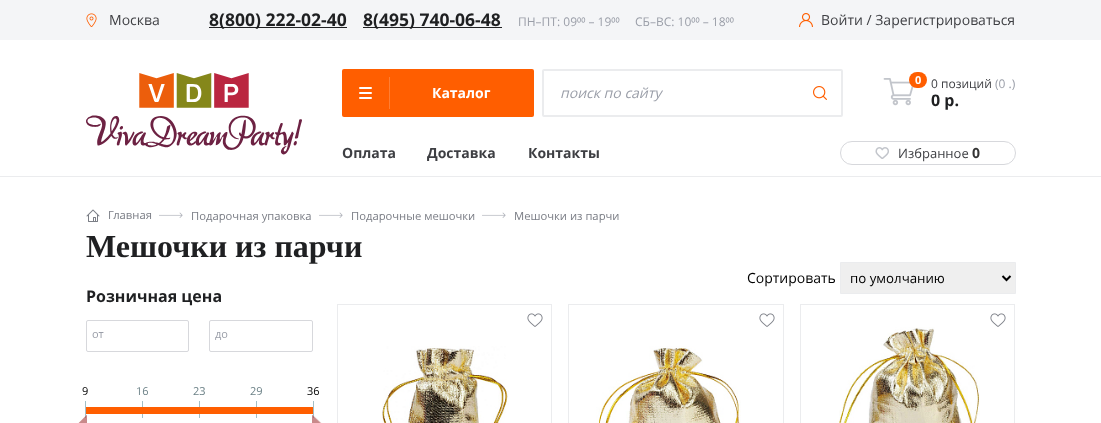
(async () => {
    const canvas = document.querySelector("canvas");
    canvas.width = 1101;
    canvas.height = 423;
    const context = canvas.getContext("2d");
    context.miterLimit = 4;
    context.fontKerning = "normal";
    function write(s, x, y, font, color) {
        context.font = font;
        context.fillStyle = color;
        context.fillText(s, x, y);
    }
    function block(x, y, w, h, color) {
        context.fillStyle = color;
        context.fillRect(x, y, w, h);
    }
    function card(x, y, w, h, r, color) {
        context.fillStyle = color;
        context.beginPath();
        context.roundRect(x, y, w, h, r);
        context.fill();
    }
    async function photo(src, x, y, w, h) {
        const img = new Image();
        img.src = src;
        await img.decode();
        context.drawImage(img, x, y, w, h);
    }

    block(0, 0, 1101, 423, "rgb(255, 255, 255)");
    block(0, 176, 1101, 1, "rgb(235, 236, 238)");
    block(0, 0, 1101, 40, "rgb(244, 245, 247)");
    await photo("media/1.png", 86, 13, 11, 14);
    write("Москва", 109, 25, "14px Open Sans", "rgb(62, 63, 67)");
    block(209, 27, 138, 1, "rgb(31, 32, 34)");
    write("8(800) 222-02-40", 209, 26, "bold 17.5px Open Sans", "rgb(31, 32, 34)");
    block(363, 27, 139, 1, "rgb(31, 32, 34)");
    write("8(495) 740-06-48", 363, 26, "bold 17.5px Open Sans", "rgb(31, 32, 34)");
    write("ПН–ПТ: 09⁰⁰ – 19⁰⁰", 518, 26, "12px Open Sans", "rgb(154, 158, 168)");
    write("СБ–ВС: 10⁰⁰ – 18⁰⁰", 635, 26, "12px Open Sans", "rgb(154, 158, 168)");
    await photo("media/2.png", 799, 13, 14, 14);
    write("Войти / Зарегистрироваться", 821, 25, "14px Open Sans", "rgb(62, 63, 67)");
    await photo("media/3.png", 86, 73, 216, 82);
    card(342, 69, 192, 48, 2, "rgb(255, 94, 0)");
    block(389, 77, 1, 32, "rgb(255, 126, 51)");
    card(359, 87, 13, 2, 1, "rgb(255, 255, 255)");
    card(359, 92, 13, 2, 1, "rgb(255, 255, 255)");
    card(359, 97, 13, 2, 1, "rgb(255, 255, 255)");
    write("Каталог", 432, 98, "bold 14px Open Sans", "rgb(255, 255, 255)");
    context.beginPath();
    context.roundRect(543, 70, 299, 46, 1);
    context.strokeStyle = "rgb(235, 236, 238)";
    context.lineWidth = 2;
    context.stroke();
    write("поиск по сайту", 560, 98, "italic 14px Open Sans", "rgb(154, 158, 168)");
    await photo("media/4.png", 813, 86, 14, 14);
    await photo("media/5.png", 883, 78, 31, 28);
    card(909, 72, 18, 16, 8, "rgb(255, 94, 0)");
    write("0", 915, 84, "bold 11px Open Sans", "rgb(255, 255, 255)");
    write("0 позиций", 931, 88, "12px Open Sans", "rgb(62, 63, 67)");
    write("(0 .)", 995, 88, "12px Open Sans", "rgb(154, 158, 168)");
    write("0 р.", 931, 106, "bold 16px Open Sans", "rgb(31, 32, 34)");
    write("Оплата", 342, 158, "bold 14px Open Sans", "rgb(62, 63, 67)");
    write("Доставка", 427, 158, "bold 14px Open Sans", "rgb(62, 63, 67)");
    write("Контакты", 528, 158, "bold 14px Open Sans", "rgb(62, 63, 67)");
    context.beginPath();
    context.roundRect(840.5, 141.5, 175, 23, 11.5);
    context.strokeStyle = "rgb(215, 216, 220)";
    context.lineWidth = 1;
    context.stroke();
    await photo("media/6.png", 875, 147, 14, 12);
    write("Избранное", 898, 158, "13px Open Sans", "rgb(62, 63, 67)");
    write("0", 972, 158, "bold 14px Open Sans", "rgb(51, 51, 51)");
    await photo("media/7.png", 86, 209, 14, 13);
    write("Главная", 108, 219, "11.25px Open Sans", "rgb(123, 126, 134)");
    await photo("media/8.png", 159, 212, 24, 6);
    write("Подарочная упаковка", 191, 220, "11.25px Open Sans", "rgb(123, 126, 134)");
    await photo("media/8.png", 319, 212, 24, 6);
    write("Подарочные мешочки", 351, 220, "11.25px Open Sans", "rgb(123, 126, 134)");
    await photo("media/8.png", 482, 212, 24, 6);
    write("Мешочки из парчи", 514, 220, "11.25px Open Sans", "rgb(123, 126, 134)");
    write("Мешочки из парчи", 86, 257, "bold 32px Liberation Serif", "rgb(31, 32, 34)");
    write("Сортировать", 747, 283, "14px Open Sans", "rgb(0, 0, 0)");
    context.fillStyle = "rgb(239, 239, 239)";
    context.beginPath();
    context.rect(840.5, 262.5, 175, 31);
    context.fill();
    context.strokeStyle = "rgb(235, 236, 238)";
    context.stroke();
    context.beginPath();
    context.moveTo(1002.5, 276);
    context.lineTo(1006.5, 280);
    context.lineTo(1010.5, 276);
    context.strokeStyle = "rgb(0, 0, 0)";
    context.lineWidth = 2;
    context.stroke();
    write("по умолчанию", 850, 283, "13.25px Open Sans", "rgb(0, 0, 0)");
    context.strokeStyle = "rgb(235, 236, 238)";
    context.lineWidth = 1;
    context.strokeRect(337.5, 304.5, 214, 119);
    await photo("media/9.png", 527, 313, 16, 14);
    await photo("media/10.png", 382, 346, 127, 77);
    context.strokeRect(568.5, 304.5, 215, 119);
    await photo("media/9.png", 759, 313, 16, 14);
    await photo("media/11.png", 596, 346, 145, 77);
    context.strokeRect(800.5, 304.5, 214, 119);
    await photo("media/9.png", 990, 313, 16, 14);
    await photo("media/12.png", 839, 327, 141, 96);
    write("Розничная цена", 86, 302, "bold 16px Open Sans", "rgb(31, 32, 34)");
    context.beginPath();
    context.roundRect(86.5, 320.5, 102, 31, 1.5);
    context.strokeStyle = "rgb(215, 216, 220)";
    context.stroke();
    write("от", 92, 338, "11px Open Sans", "rgb(154, 158, 168)");
    context.beginPath();
    context.roundRect(209.5, 320.5, 103, 31, 1.5);
    context.stroke();
    write("до", 215, 338, "11px Open Sans", "rgb(154, 158, 168)");
    block(85, 401, 1, 17, "rgb(162, 191, 199)");
    write("9", 82, 395, "11px Open Sans", "rgb(0, 0, 0)");
    block(142, 401, 1, 17, "rgb(162, 191, 199)");
    write("16", 136, 395, "11px Open Sans", "rgb(107, 128, 134)");
    block(199, 401, 1, 17, "rgb(162, 191, 199)");
    write("23", 193, 395, "11px Open Sans", "rgb(107, 128, 134)");
    block(256, 401, 1, 17, "rgb(162, 191, 199)");
    write("29", 250, 395, "11px Open Sans", "rgb(107, 128, 134)");
    block(313, 401, 1, 17, "rgb(162, 191, 199)");
    write("36", 307, 395, "11px Open Sans", "rgb(0, 0, 0)");
    block(86, 407, 227, 7, "rgb(255, 94, 0)");
    await photo("media/13.png", 78, 414, 9, 9);
    await photo("media/14.png", 312, 414, 10, 9);
})();
